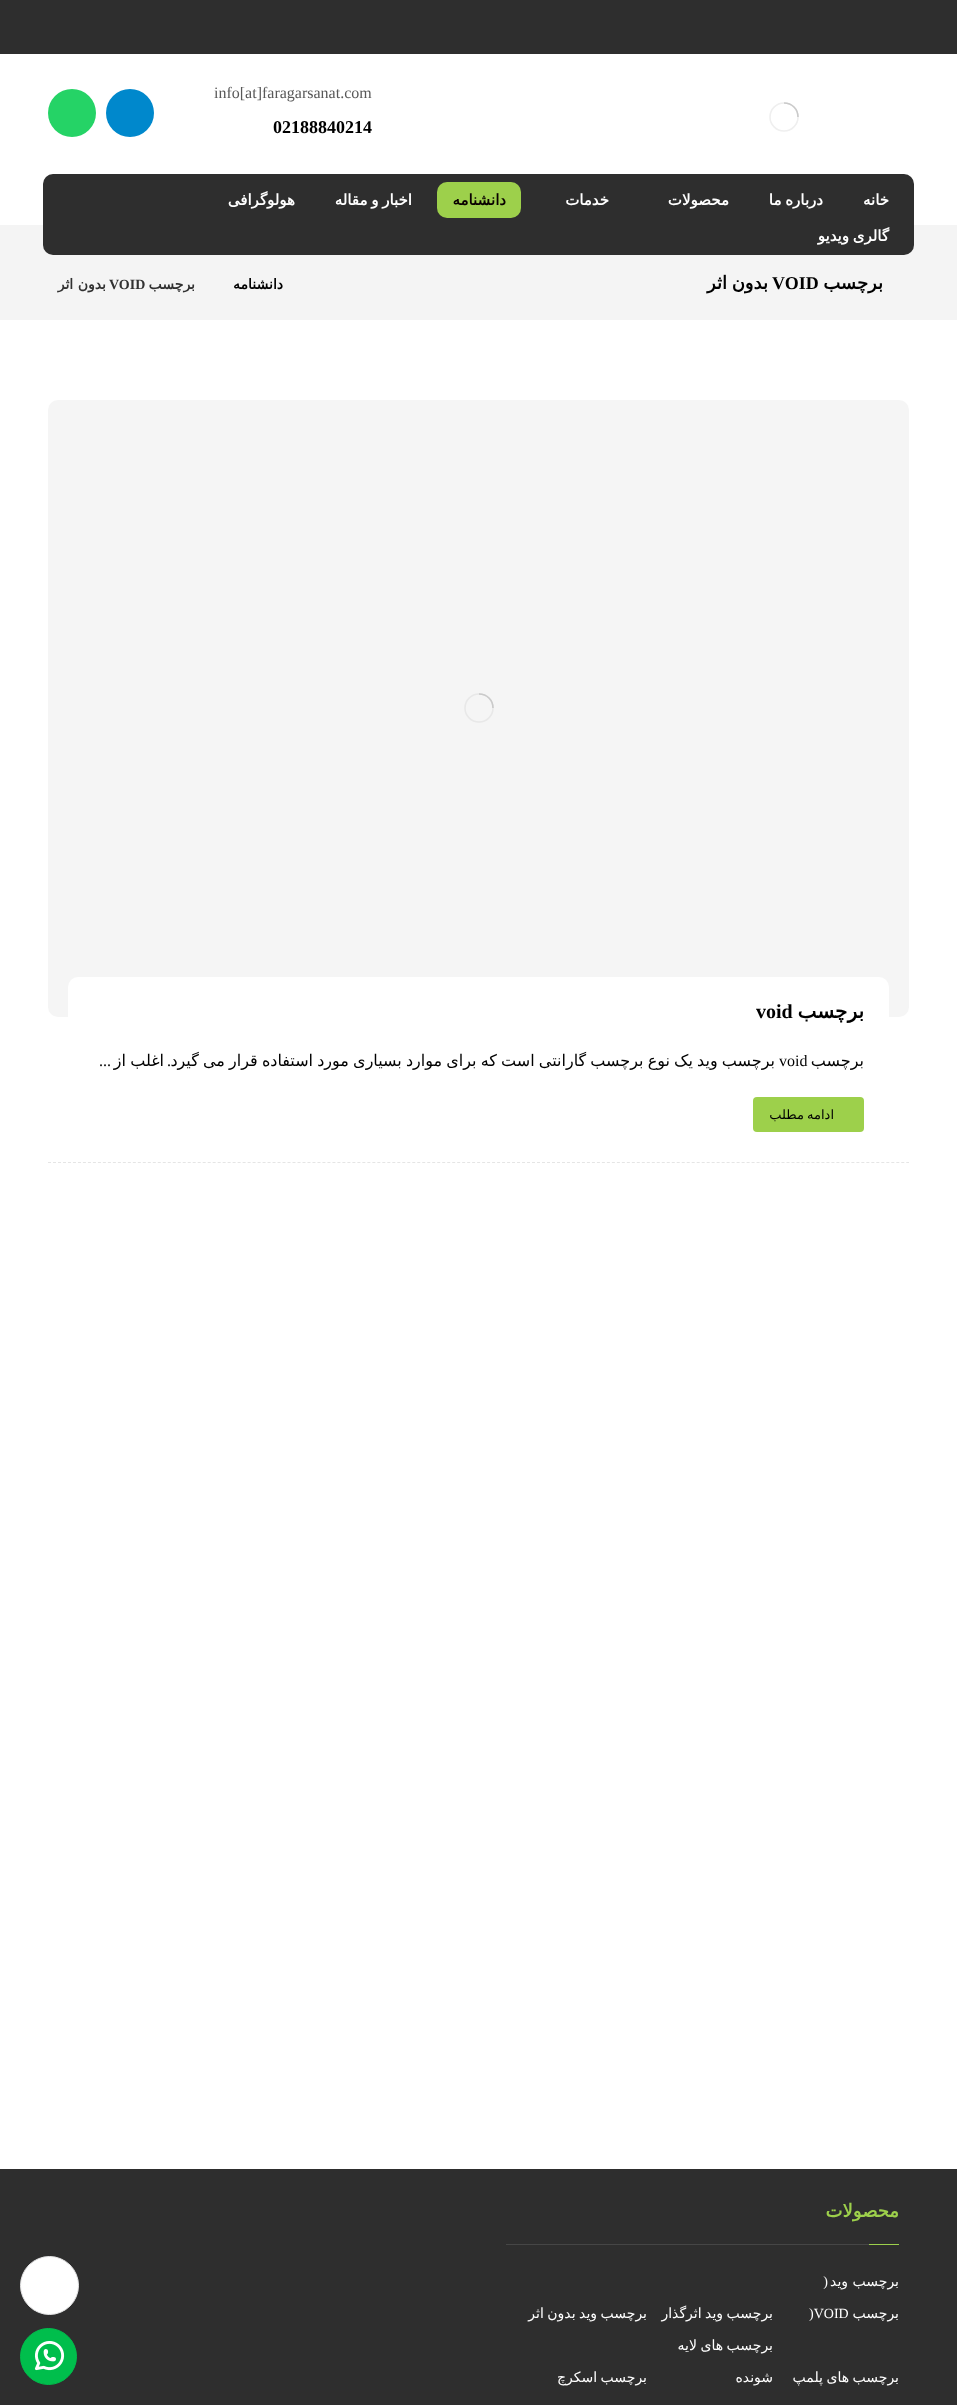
(async () => {
    const canvas = document.querySelector("canvas");
    canvas.width = 957;
    canvas.height = 2405;
    const context = canvas.getContext("2d");
    context.miterLimit = 4;
    context.fontKerning = "normal";
    function write(s, x, y, font, color) {
        context.font = font;
        context.fillStyle = color;
        context.fillText(s, x, y);
    }
    function block(x, y, w, h, color) {
        context.fillStyle = color;
        context.fillRect(x, y, w, h);
    }
    function card(x, y, w, h, r, color) {
        context.fillStyle = color;
        context.beginPath();
        context.roundRect(x, y, w, h, r);
        context.fill();
    }
    async function photo(src, x, y, w, h) {
        const img = new Image();
        img.src = src;
        await img.decode();
        context.drawImage(img, x, y, w, h);
    }

    block(0, 0, 957, 2405, "rgb(255, 255, 255)");
    block(0, 0, 957, 54, "rgb(46, 46, 46)");
    context.beginPath();
    context.arc(784, 117, 14, 0, Math.PI * 2);
    context.strokeStyle = "rgb(239, 239, 239)";
    context.lineWidth = 1.6;
    context.stroke();
    context.beginPath();
    context.moveTo(798, 117);
    context.bezierCurveTo(798, 109, 792, 103, 784, 103);
    context.strokeStyle = "rgb(202, 202, 202)";
    context.stroke();
    write("info[at]faragarsanat.com", 214, 98, "16px Liberation Serif", "rgb(88, 88, 88)");
    write("02188840214", 273, 133, "bold 18px Liberation Serif", "rgb(0, 0, 0)");
    context.fillStyle = "rgb(0, 136, 204)";
    context.beginPath();
    context.arc(130, 113, 24, 0, Math.PI * 2);
    context.fill();
    context.fillStyle = "rgb(37, 211, 102)";
    context.beginPath();
    context.arc(72, 113, 24, 0, Math.PI * 2);
    context.fill();
    block(0, 225, 957, 95, "rgb(244, 244, 244)");
    card(43, 174, 871, 81, 10, "rgb(46, 46, 46)");
    context.direction = "rtl";
    write("خانه", 889, 205, "bold 15px DejaVu Sans", "rgb(255, 255, 255)");
    context.wordSpacing = "-1px";
    write("درباره ما", 823, 205, "bold 15px DejaVu Sans", "rgb(255, 255, 255)");
    context.wordSpacing = "0px";
    write("محصولات", 729, 205, "bold 15px DejaVu Sans", "rgb(255, 255, 255)");
    write("خدمات", 609, 205, "bold 15px DejaVu Sans", "rgb(255, 255, 255)");
    card(437, 182, 84, 36, 10, "rgb(157, 208, 75)");
    write("دانشنامه", 506, 205, "bold 15px DejaVu Sans", "rgb(10, 0, 0)");
    context.wordSpacing = "-1px";
    write("اخبار و مقاله", 412, 205, "bold 15px DejaVu Sans", "rgb(255, 255, 255)");
    context.wordSpacing = "0px";
    write("هولوگرافی", 295, 205, "bold 15px DejaVu Sans", "rgb(255, 255, 255)");
    context.wordSpacing = "-1px";
    write("گالری ویدیو", 889, 241, "bold 15px DejaVu Sans", "rgb(255, 255, 255)");
    context.wordSpacing = "0px";
    write("برچسب", 883, 289, "bold 18px DejaVu Sans", "rgb(0, 0, 0)");
    context.direction = "ltr";
    write("VOID", 772, 289, "bold 18px Liberation Serif", "rgb(0, 0, 0)");
    context.wordSpacing = "-1px";
    context.direction = "rtl";
    write("بدون اثر", 768, 289, "bold 18px DejaVu Sans", "rgb(0, 0, 0)");
    context.wordSpacing = "0px";
    write("دانشنامه", 283, 289, "bold 14px DejaVu Sans", "rgb(0, 0, 0)");
    write("برچسب", 195, 289, "bold 14px DejaVu Sans", "rgb(49, 49, 49)");
    context.direction = "ltr";
    write("VOID", 109, 289, "bold 14px Liberation Serif", "rgb(49, 49, 49)");
    context.direction = "rtl";
    write("بدون اثر", 106, 289, "bold 14px DejaVu Sans", "rgb(49, 49, 49)");
    context.beginPath();
    context.moveTo(48, 1162.5);
    context.lineTo(909, 1162.5);
    context.strokeStyle = "rgb(229, 229, 229)";
    context.lineWidth = 1;
    context.setLineDash([3, 1.99]);
    context.stroke();
    card(48, 400, 861, 617, 10, "rgb(245, 245, 245)");
    context.beginPath();
    context.arc(479, 708, 14, 0, Math.PI * 2);
    context.strokeStyle = "rgb(232, 232, 232)";
    context.lineWidth = 1.6;
    context.setLineDash([]);
    context.stroke();
    context.beginPath();
    context.moveTo(493, 708);
    context.bezierCurveTo(493, 700, 487, 694, 479, 694);
    context.strokeStyle = "rgb(202, 202, 202)";
    context.stroke();
    card(68, 977, 821, 58, 10, "rgb(255, 255, 255)");
    write("برچسب", 864, 1018, "bold 20px DejaVu Sans", "rgb(0, 0, 0)");
    context.direction = "ltr";
    write("void", 756, 1018, "bold 20px Liberation Serif", "rgb(0, 0, 0)");
    context.direction = "rtl";
    write("برچسب", 864, 1066, "16px DejaVu Sans", "rgb(0, 0, 0)");
    context.wordSpacing = "-0.9px";
    write("برچسب وید یک نوع برچسب گارانتی است که برای موارد بسیاری مورد استفاده قرار می گیرد", 775, 1066, "16px DejaVu Sans", "rgb(0, 0, 0)");
    context.wordSpacing = "0px";
    context.direction = "ltr";
    write("void", 779, 1066, "16px Liberation Serif", "rgb(0, 0, 0)");
    context.direction = "rtl";
    write(".", 171, 1066, "16px Liberation Serif", "rgb(0, 0, 0)");
    context.wordSpacing = "-0.9px";
    write("اغلب از", 164, 1066, "16px DejaVu Sans", "rgb(0, 0, 0)");
    context.wordSpacing = "0px";
    write("...", 111, 1066, "16px Liberation Serif", "rgb(0, 0, 0)");
    card(753, 1097, 111, 35, 4, "rgb(157, 208, 75)");
    context.wordSpacing = "-1px";
    write("ادامه مطلب", 834, 1119, "13px DejaVu Sans", "rgb(0, 0, 0)");
    block(0, 2169, 957, 236, "rgb(46, 46, 46)");
    block(506, 2244, 363, 1, "rgb(70, 70, 70)");
    context.wordSpacing = "0px";
    write("محصولات", 899, 2217, "bold 18px DejaVu Sans", "rgb(157, 208, 75)");
    block(869, 2244, 30, 1, "rgb(157, 208, 75)");
    write("برچسب وید", 899, 2286, "14px DejaVu Sans", "rgb(255, 255, 255)");
    write("(", 828, 2286, "14px Liberation Serif", "rgb(255, 255, 255)");
    write("برچسب", 899, 2318, "14px DejaVu Sans", "rgb(255, 255, 255)");
    context.direction = "ltr";
    write(")VOID", 809, 2318, "14px Liberation Serif", "rgb(255, 255, 255)");
    context.wordSpacing = "-1px";
    context.direction = "rtl";
    write("برچسب وید اثرگذار", 773, 2318, "14px DejaVu Sans", "rgb(255, 255, 255)");
    write("برچسب وید بدون اثر", 647, 2318, "14px DejaVu Sans", "rgb(255, 255, 255)");
    write("برچسب های پلمپ", 899, 2382, "14px DejaVu Sans", "rgb(255, 255, 255)");
    write("برچسب های لایه", 773, 2350, "14px DejaVu Sans", "rgb(255, 255, 255)");
    context.wordSpacing = "0px";
    write("شونده", 773, 2382, "14px DejaVu Sans", "rgb(255, 255, 255)");
    context.wordSpacing = "-1px";
    write("برچسب اسکرچ", 647, 2382, "14px DejaVu Sans", "rgb(255, 255, 255)");
    context.beginPath();
    context.arc(49.5, 2285.5, 29, 0, Math.PI * 2);
    context.fill();
    context.strokeStyle = "rgb(230, 230, 231)";
    context.lineWidth = 1;
    context.stroke();
    context.fillStyle = "rgb(0, 190, 76)";
    context.beginPath();
    context.arc(48.5, 2356.5, 28, 0, Math.PI * 2);
    context.fill();
    context.strokeStyle = "rgb(0, 190, 76)";
    context.stroke();
    await photo("media/1.png", 34, 2341, 31, 30);
})();
